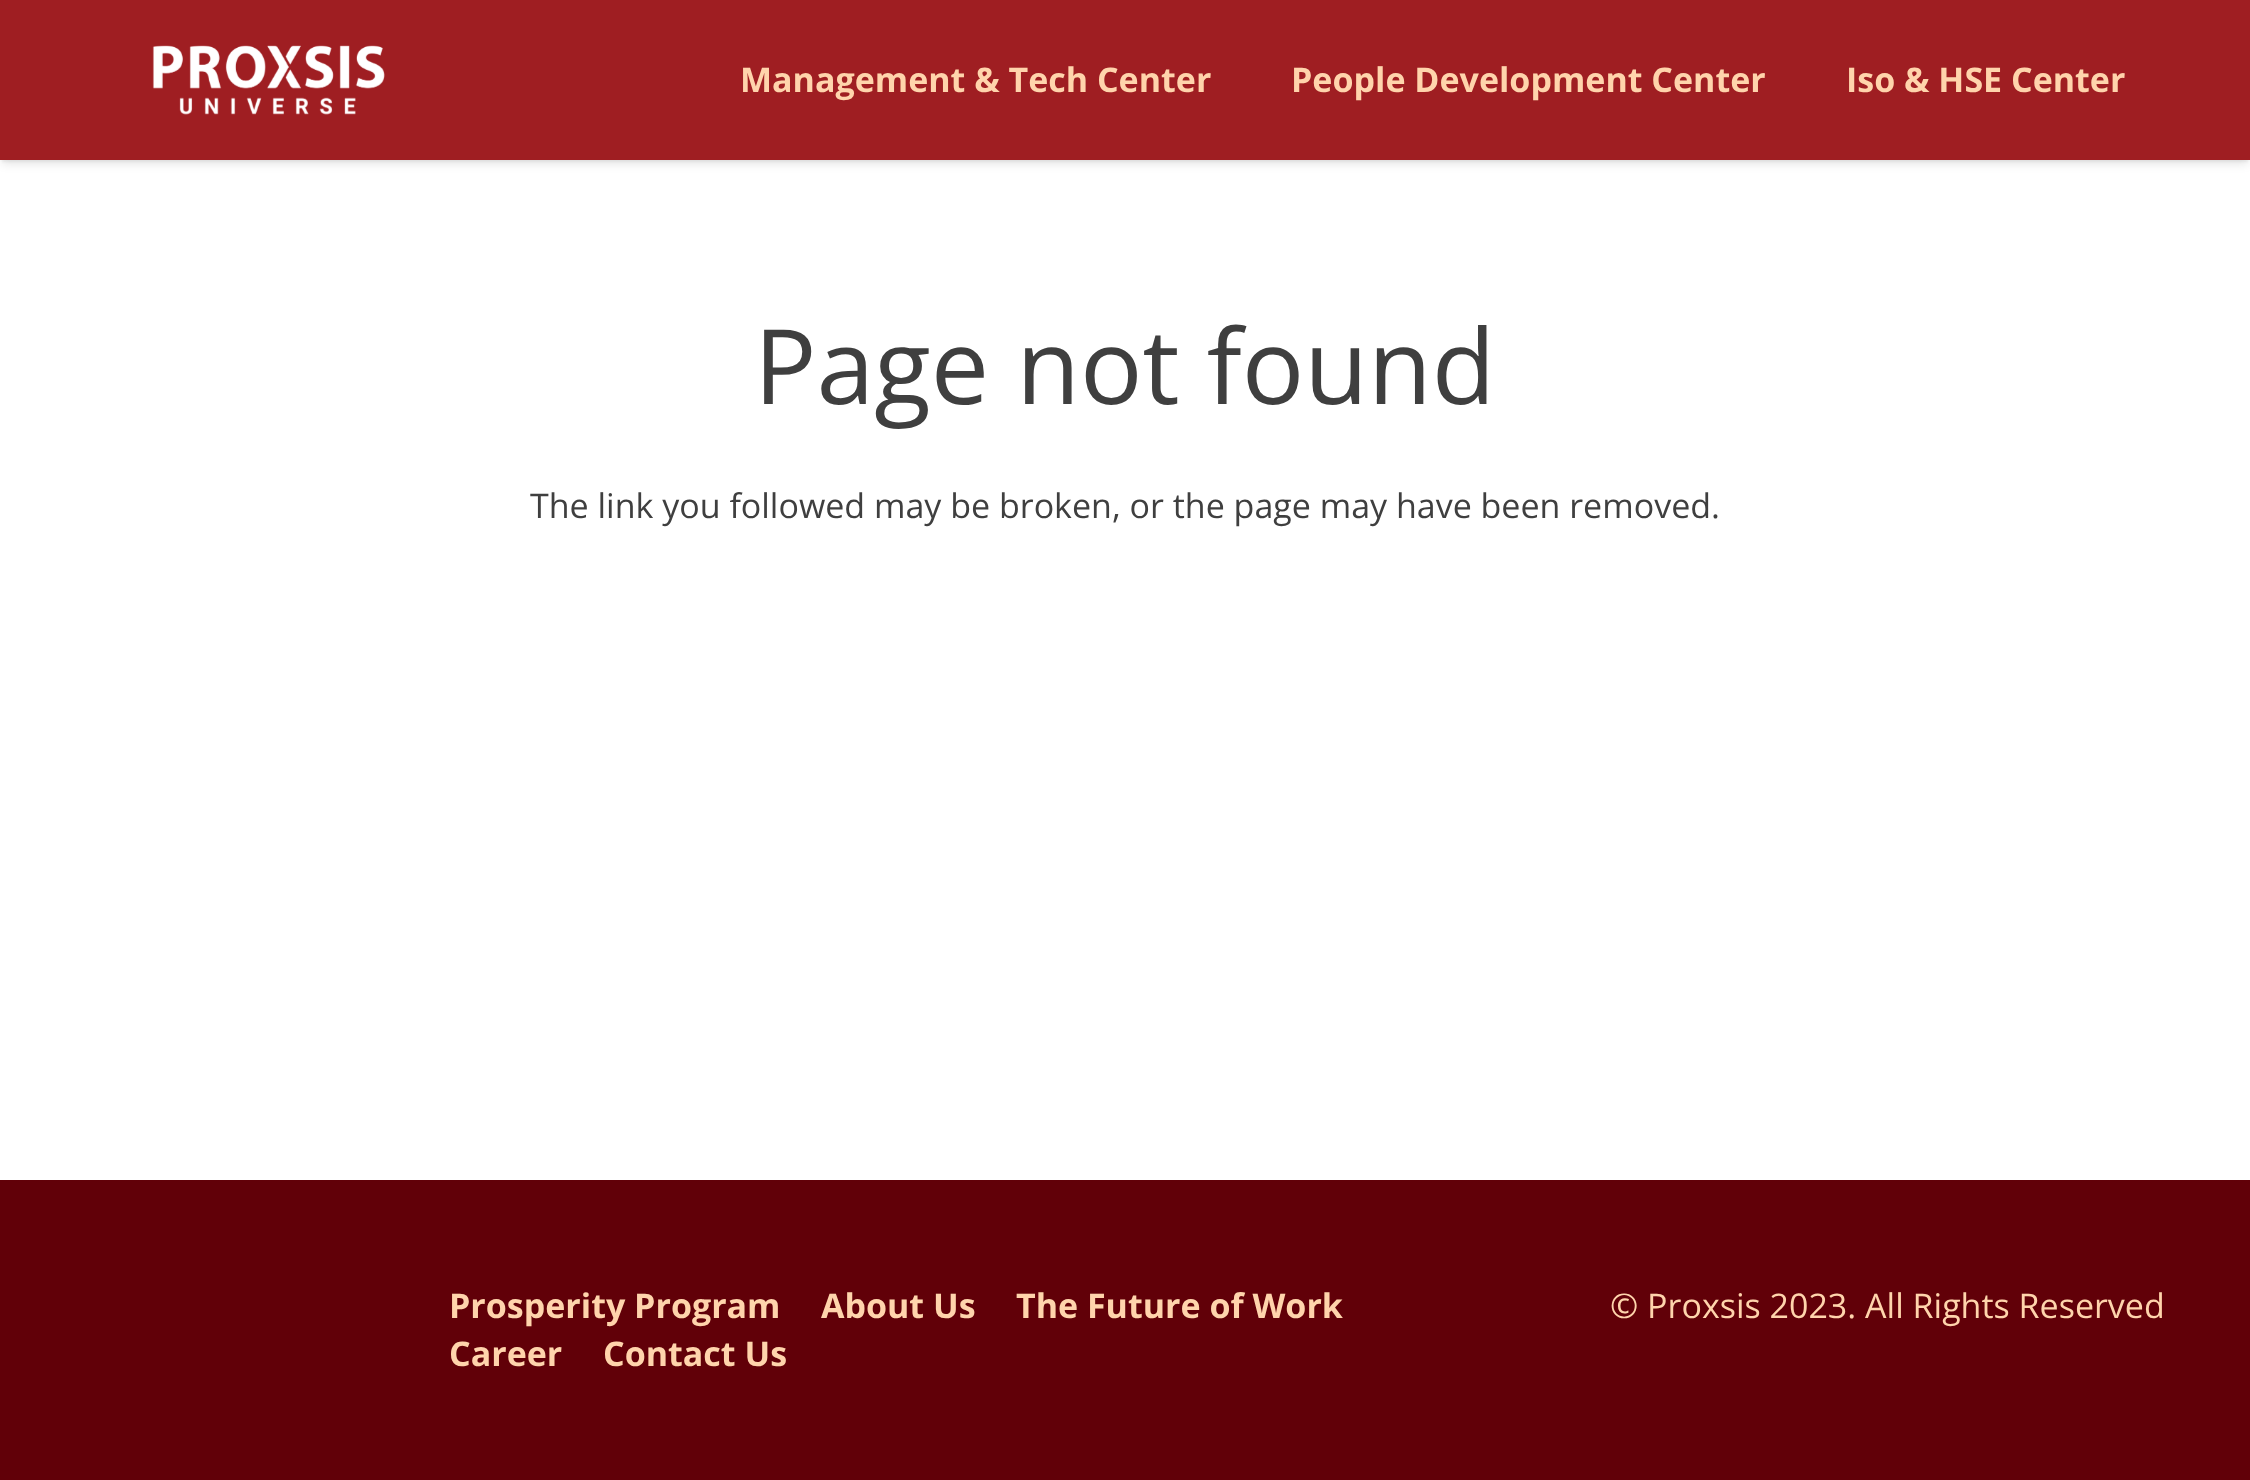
<?xml version="1.0" encoding="UTF-8"?>
<svg xmlns="http://www.w3.org/2000/svg" width="2250" height="1480">
    <defs>
        <filter id="blur1" x="-50%" y="-200%" width="200%" height="500%"><feGaussianBlur stdDeviation="1"/></filter>
        <filter id="blur2" x="-50%" y="-200%" width="200%" height="500%"><feGaussianBlur stdDeviation="5"/></filter>
    </defs>
    <rect width="100%" height="100%" fill="#FFFFFF"/>
    <rect x="2" y="6" width="2246" height="156" fill="#000000" fill-opacity="0.05" filter="url(#blur1)"/>
    <rect x="2" y="8" width="2246" height="156" fill="#000000" fill-opacity="0.1" filter="url(#blur2)"/>
    <rect x="0" y="0" width="2250" height="160" fill="#9F1E22"/>
    <image x="152" y="45" width="233" height="70" href="img_01.png"/>
    <text x="740" y="92" font-family="Open Sans" font-size="34" font-weight="700" fill="#FFD4AC">Management &amp; Tech Center</text>
    <text x="1291" y="92" font-family="Open Sans" font-size="34" font-weight="700" fill="#FFD4AC">People Development Center</text>
    <text x="1846" y="92" font-family="Open Sans" font-size="34" font-weight="700" fill="#FFD4AC">Iso &amp; HSE Center</text>
    <text x="754" y="404" font-family="Open Sans" font-size="104" fill="#3F3F3F">Page not found</text>
    <text x="530" y="518" font-family="Open Sans" font-size="34" fill="#3F3F3F">The link you followed may be broken, or the page may have been removed.</text>
    <rect x="0" y="1180" width="2250" height="300" fill="#610008"/>
    <text x="449" y="1318" font-family="Open Sans" font-size="34" font-weight="700" fill="#FFD4AC">Prosperity Program</text>
    <text x="821" y="1318" font-family="Open Sans" font-size="34" font-weight="700" fill="#FFD4AC">About Us</text>
    <text x="1016" y="1318" font-family="Open Sans" font-size="34" font-weight="700" fill="#FFD4AC">The Future of Work</text>
    <text x="449" y="1366" font-family="Open Sans" font-size="34" font-weight="700" fill="#FFD4AC">Career</text>
    <text x="603" y="1366" font-family="Open Sans" font-size="34" font-weight="700" fill="#FFD4AC">Contact Us</text>
    <text x="1610" y="1318" font-family="Open Sans" font-size="34" fill="#FFD4AC">© Proxsis 2023. All Rights Reserved</text>
</svg>
